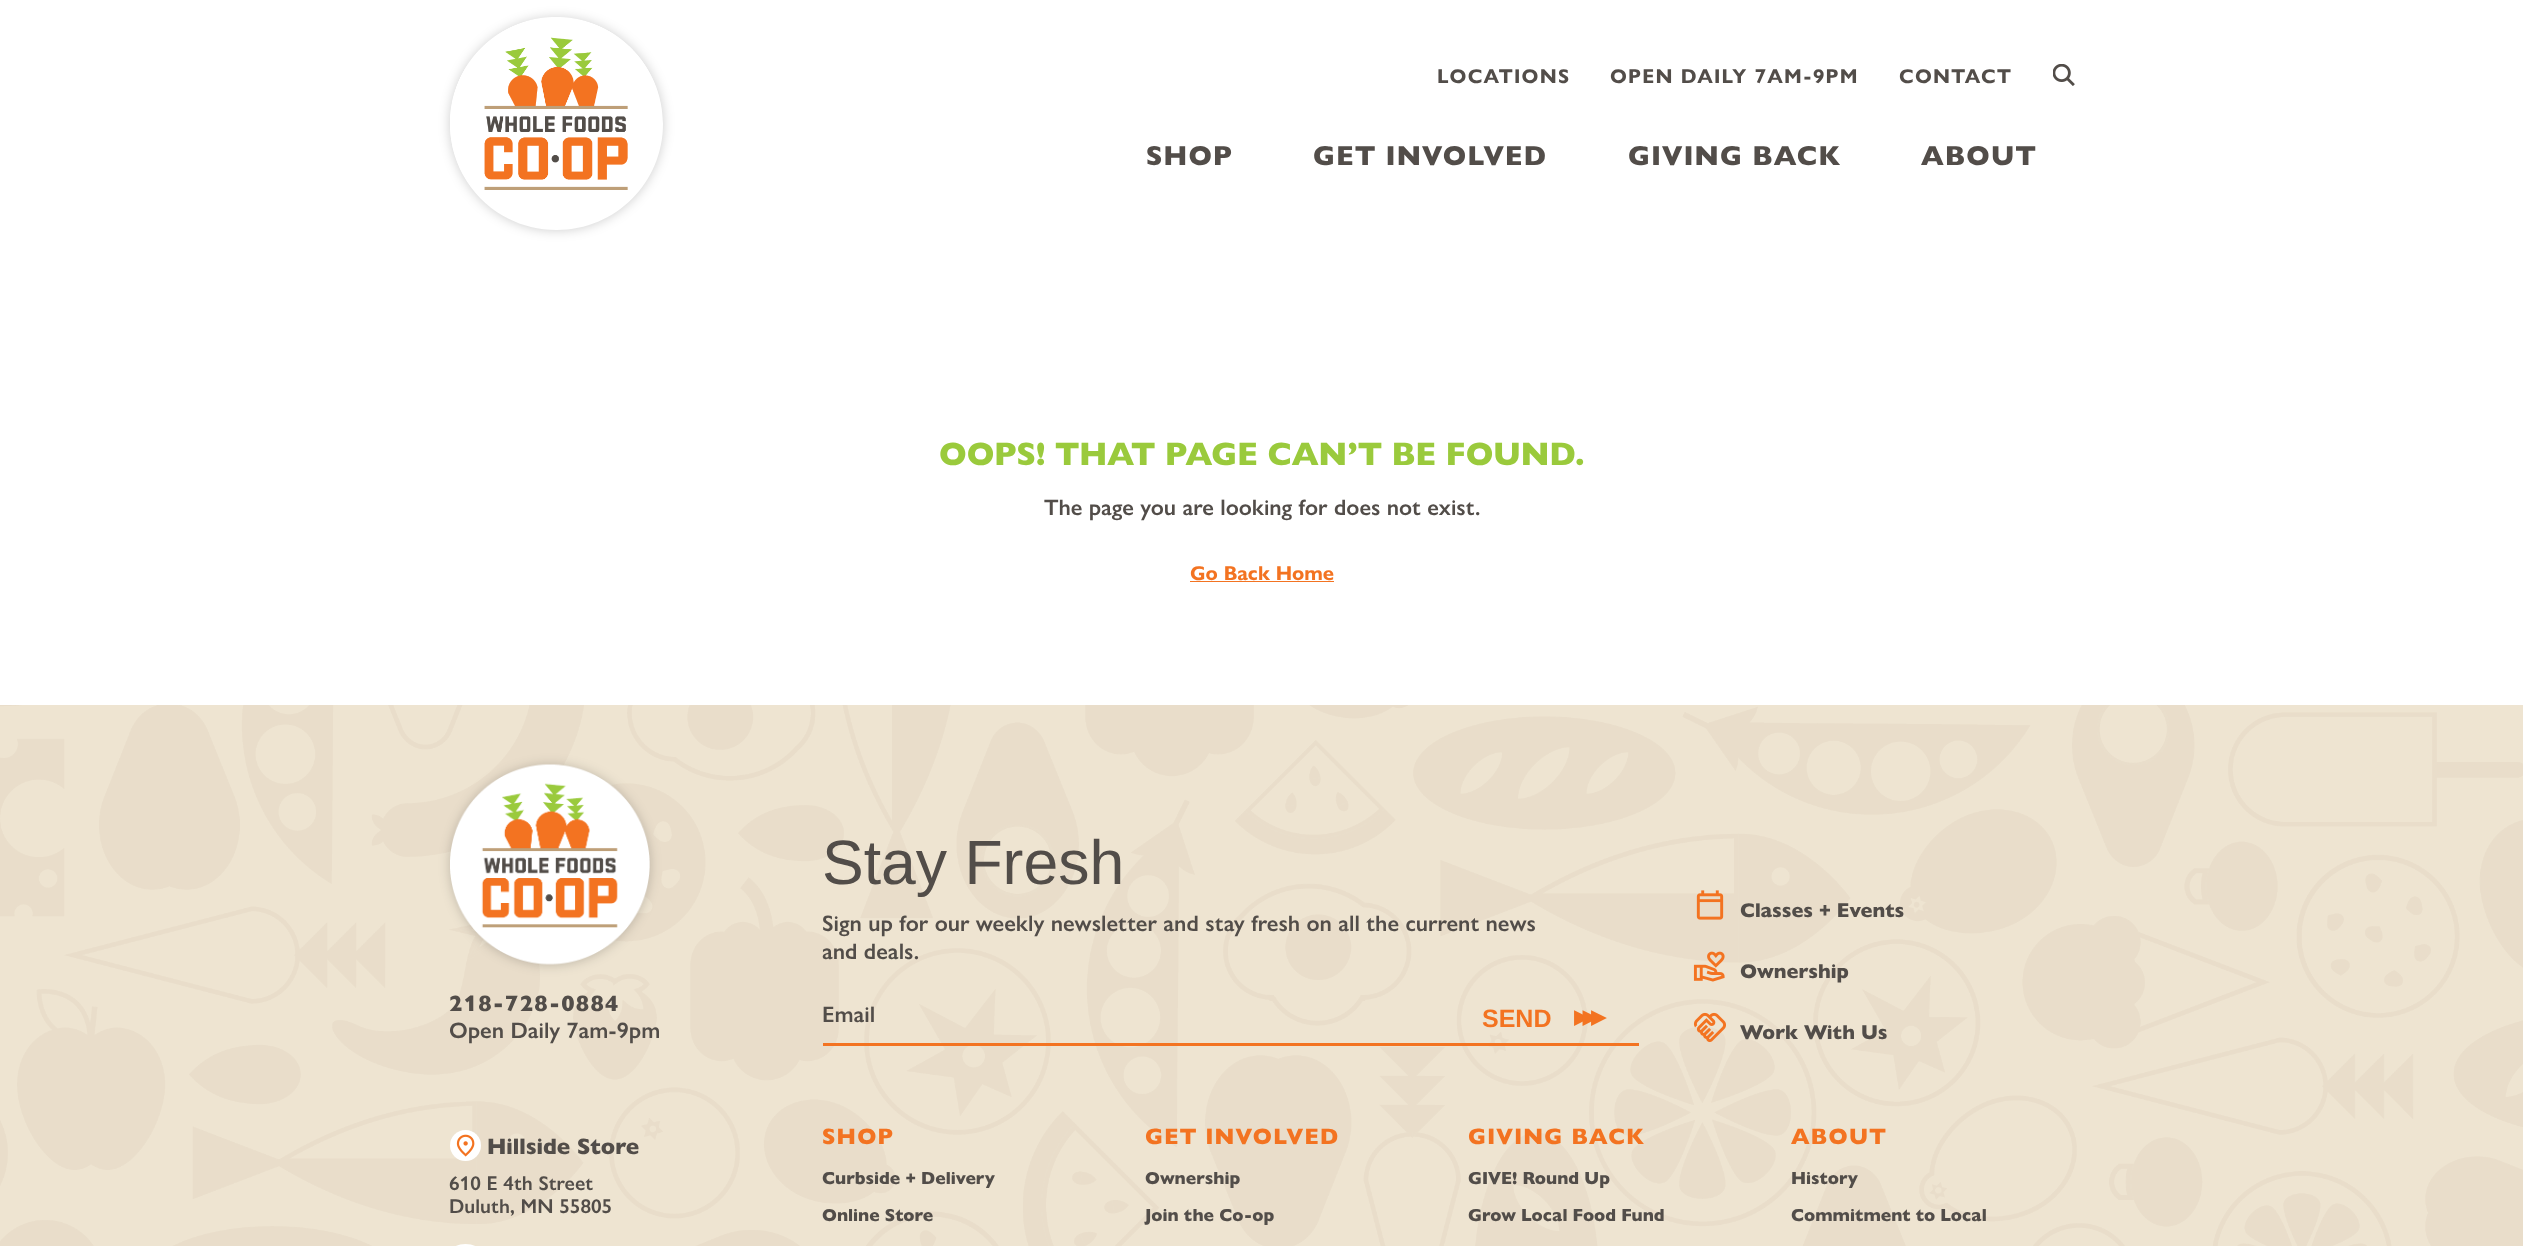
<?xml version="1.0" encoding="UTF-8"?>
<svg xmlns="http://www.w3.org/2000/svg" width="2523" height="1246">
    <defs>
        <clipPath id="clip1"><path d="M 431 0 H 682 V 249 H 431 Z M 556 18 H 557 C 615.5 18 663 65.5 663 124 C 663 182.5 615.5 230 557 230 H 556 C 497.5 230 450 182.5 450 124 C 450 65.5 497.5 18 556 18 Z" clip-rule="evenodd"/></clipPath>
        <filter id="blur1" x="-50%" y="-200%" width="200%" height="500%"><feGaussianBlur stdDeviation="6"/></filter>
    </defs>
    <rect width="100%" height="100%" fill="#FFFFFF"/>
    <g clip-path="url(#clip1)">
        <rect x="450" y="18" width="213" height="212" rx="106" fill="#000000" fill-opacity="0.2" filter="url(#blur1)"/>
    </g>
    <image x="450" y="17" width="212" height="173" href="img_01.png"/>
    <text x="1437" y="83" font-family="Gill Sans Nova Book" font-size="20" font-weight="700" letter-spacing="1.25" fill="#524D49">LOCATIONS</text>
    <text x="1610" y="83" font-family="Gill Sans Nova Book" font-size="20" font-weight="700" letter-spacing="1.25" fill="#524D49">OPEN DAILY 7AM-9PM</text>
    <text x="1899" y="83" font-family="Gill Sans Nova Book" font-size="20" font-weight="700" letter-spacing="1.25" fill="#524D49">CONTACT</text>
    <image x="2053" y="64" width="22" height="22" href="img_02.png"/>
    <text x="1146" y="165" font-family="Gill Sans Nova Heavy" font-size="27.5" font-weight="900" letter-spacing="1.25" fill="#524D49">SHOP</text>
    <text x="1313" y="165" font-family="Gill Sans Nova Heavy" font-size="27.5" font-weight="900" letter-spacing="1.25" fill="#524D49">GET INVOLVED</text>
    <text x="1628" y="165" font-family="Gill Sans Nova Heavy" font-size="27.5" font-weight="900" letter-spacing="1.25" fill="#524D49">GIVING BACK</text>
    <text x="1921" y="165" font-family="Gill Sans Nova Heavy" font-size="27.5" font-weight="900" letter-spacing="1.25" fill="#524D49">ABOUT</text>
    <text x="939" y="465" font-family="Gill Sans Nova Heavy" font-size="32.5" font-weight="900" fill="#9ACA3C">OOPS! THAT PAGE CAN’T BE FOUND.</text>
    <text x="1044" y="515" font-family="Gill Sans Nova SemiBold" font-size="22.5" font-weight="600" fill="#524D49">The page you are looking for does not exist.</text>
    <text x="1190" y="580" font-family="Gill Sans Nova Book" font-size="20" font-weight="700" fill="#F37321">Go Back Home</text>
    <rect x="1190" y="581" width="144" height="1" fill="#F37321"/>
    <rect x="0" y="705" width="2523" height="541" fill="#EEE4D1"/>
    <image x="0" y="705" width="2523" height="541" href="img_03.png"/>
    <rect x="450" y="765" width="200" height="200" rx="100" fill="#000000" fill-opacity="0.2" filter="url(#blur1)"/>
    <image x="450" y="764" width="200" height="201" href="img_04.png"/>
    <text x="449" y="1011" font-family="Gill Sans Nova Heavy" font-size="22.5" font-weight="900" letter-spacing="1.25" fill="#524D49">218-728-0884</text>
    <text x="449" y="1038" font-family="Gill Sans Nova SemiBold" font-size="22.5" font-weight="600" fill="#524D49">Open Daily 7am-9pm</text>
    <text x="822" y="884" font-family="Liberation Sans" font-size="62.5" fill="#524D49">Stay Fresh</text>
    <text font-family="Gill Sans Nova SemiBold" font-size="22.5" font-weight="600" fill="#524D49">
        <tspan x="822" y="931">Sign up for our weekly newsletter and stay fresh on all the current news</tspan>
        <tspan x="822" y="959">and deals.</tspan>
    </text>
    <rect x="823" y="1043" width="816" height="3" fill="#F37321"/>
    <text x="822" y="1022" font-family="Gill Sans Nova SemiBold" font-size="22.5" font-weight="600" fill="#524D49">Email</text>
    <text x="1482" y="1027" font-family="Liberation Sans" font-size="25" font-weight="700" fill="#F37321">SEND</text>
    <text x="1574" y="1026" font-family="DejaVu Sans" font-size="29" font-weight="700" letter-spacing="-6" fill="#F37321">▸▸▸</text>
    <image x="1696" y="890" width="28" height="30" href="img_05.png"/>
    <text x="1740" y="917" font-family="Gill Sans Nova Heavy" font-size="20" font-weight="900" fill="#524D49">Classes + Events</text>
    <image x="1693" y="951" width="32" height="31" href="img_06.png"/>
    <text x="1740" y="978" font-family="Gill Sans Nova Heavy" font-size="20" font-weight="900" fill="#524D49">Ownership</text>
    <image x="1693" y="1012" width="33" height="31" href="img_07.png"/>
    <text x="1740" y="1039" font-family="Gill Sans Nova Heavy" font-size="20" font-weight="900" fill="#524D49">Work With Us</text>
    <circle cx="465.5" cy="1145.5" r="15.5" fill="#FFFFFF"/>
    <image x="456" y="1134" width="19" height="23" href="img_08.png"/>
    <text x="487" y="1154" font-family="Gill Sans Nova Heavy" font-size="22.5" font-weight="900" fill="#524D49">Hillside Store</text>
    <text font-family="Gill Sans Nova SemiBold" font-size="20" font-weight="600" fill="#524D49">
        <tspan x="449" y="1190">610 E 4th Street</tspan>
        <tspan x="449" y="1213">Duluth, MN 55805</tspan>
    </text>
    <rect x="450" y="1244" width="31" height="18" rx="15.5" fill="#FFFFFF"/>
    <text x="822" y="1144" font-family="Gill Sans Nova Heavy" font-size="22.5" font-weight="900" letter-spacing="1.25" fill="#F37321">SHOP</text>
    <text x="822" y="1184" font-family="Gill Sans Nova Heavy" font-size="17.5" font-weight="900" fill="#524D49">Curbside + Delivery</text>
    <text x="822" y="1221" font-family="Gill Sans Nova Heavy" font-size="17.5" font-weight="900" fill="#524D49">Online Store</text>
    <text x="1145" y="1144" font-family="Gill Sans Nova Heavy" font-size="22.5" font-weight="900" letter-spacing="1.25" fill="#F37321">GET INVOLVED</text>
    <text x="1145" y="1184" font-family="Gill Sans Nova Heavy" font-size="17.5" font-weight="900" fill="#524D49">Ownership</text>
    <text x="1145" y="1221" font-family="Gill Sans Nova Heavy" font-size="17.5" font-weight="900" fill="#524D49">Join the Co-op</text>
    <text x="1468" y="1144" font-family="Gill Sans Nova Heavy" font-size="22.5" font-weight="900" letter-spacing="1.25" fill="#F37321">GIVING BACK</text>
    <text x="1468" y="1184" font-family="Gill Sans Nova Heavy" font-size="17.5" font-weight="900" fill="#524D49">GIVE! Round Up</text>
    <text x="1468" y="1221" font-family="Gill Sans Nova Heavy" font-size="17.5" font-weight="900" fill="#524D49">Grow Local Food Fund</text>
    <text x="1791" y="1144" font-family="Gill Sans Nova Heavy" font-size="22.5" font-weight="900" letter-spacing="1.25" fill="#F37321">ABOUT</text>
    <text x="1791" y="1184" font-family="Gill Sans Nova Heavy" font-size="17.5" font-weight="900" fill="#524D49">History</text>
    <text x="1791" y="1221" font-family="Gill Sans Nova Heavy" font-size="17.5" font-weight="900" fill="#524D49">Commitment to Local</text>
</svg>
